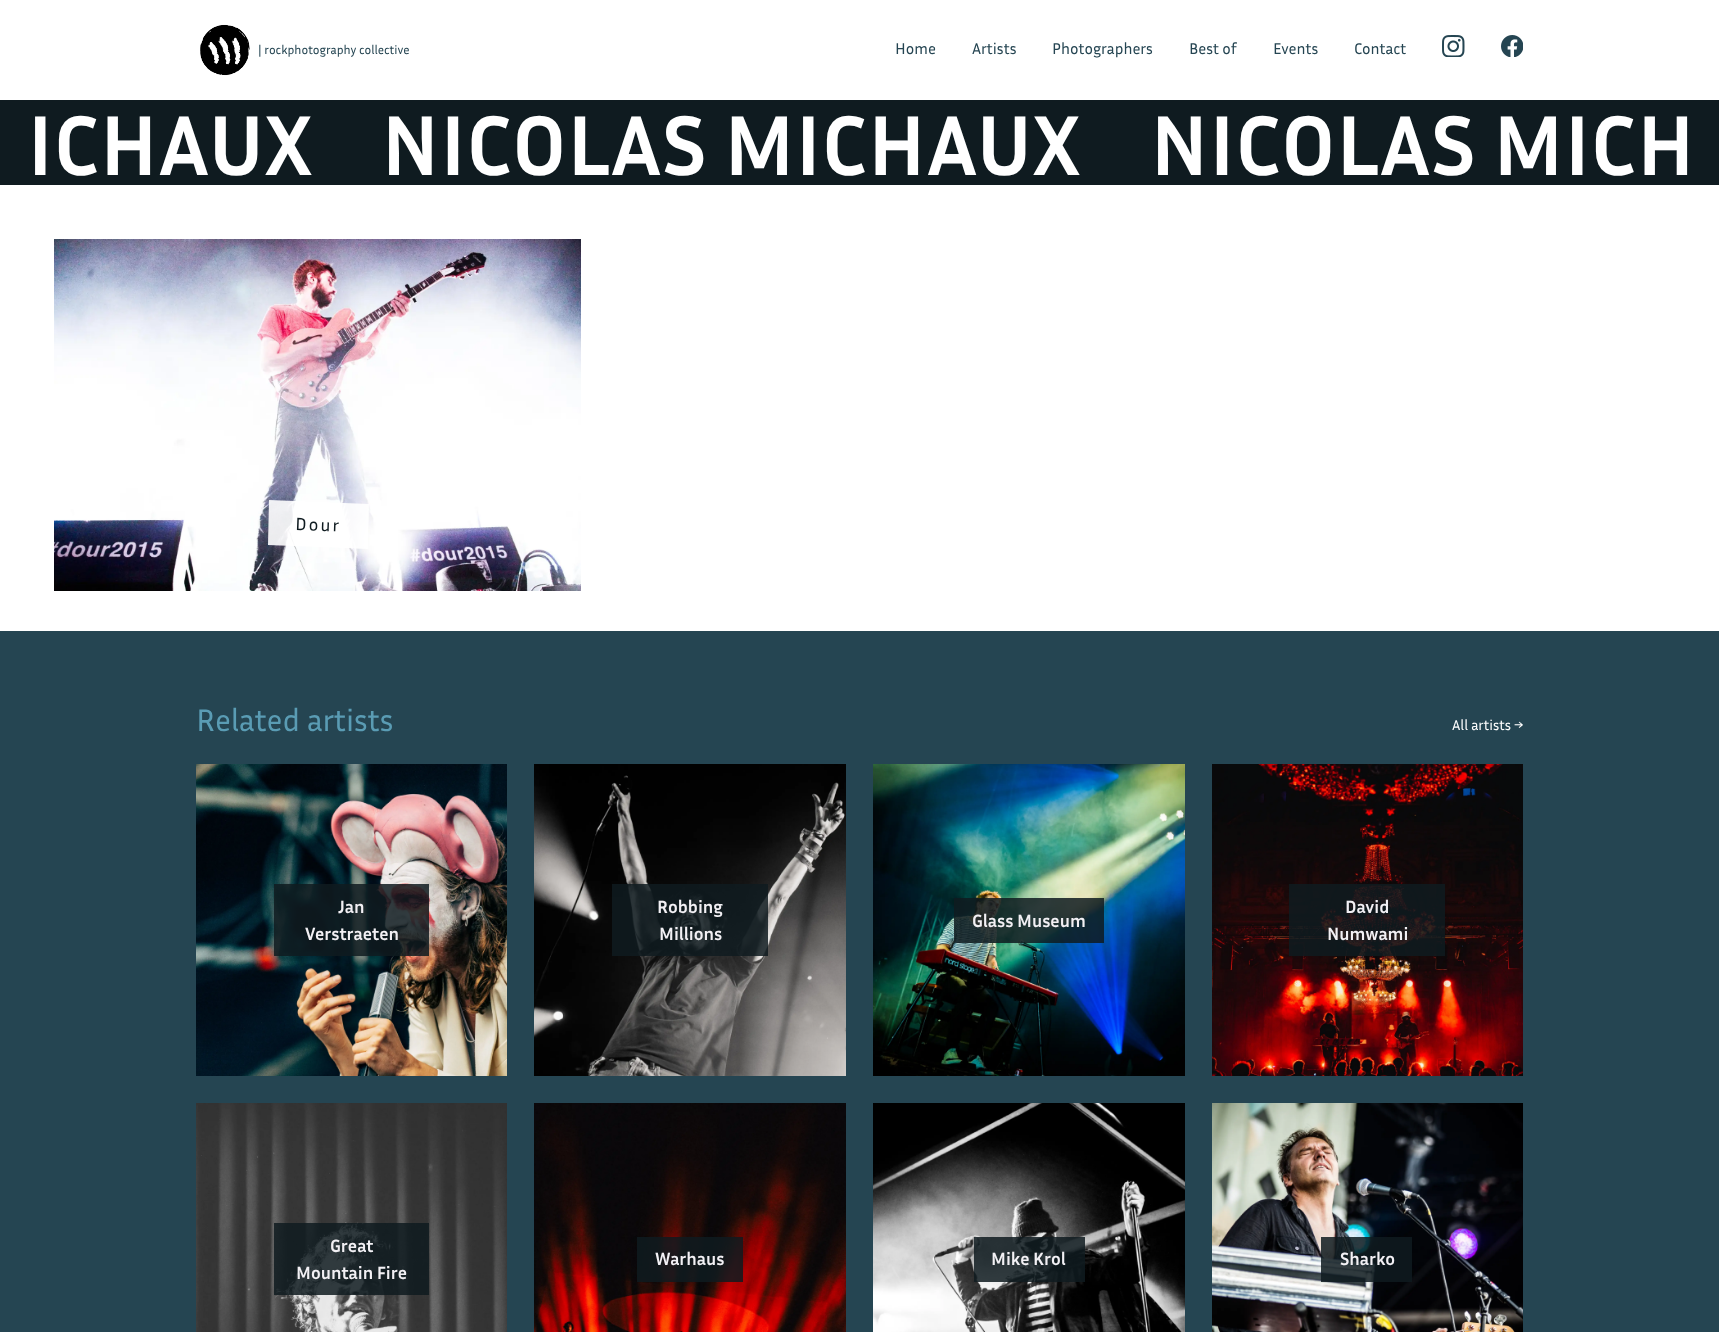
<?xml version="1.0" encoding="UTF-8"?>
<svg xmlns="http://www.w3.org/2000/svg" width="1719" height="1332">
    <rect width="100%" height="100%" fill="#254552"/>
    <rect x="0" y="0" width="1719" height="100" fill="#FFFFFF"/>
    <image x="200" y="24" width="50" height="52" href="img_01.png"/>
    <text x="258" y="54" font-family="Inria Sans" font-size="12.4" fill="#254552">| rockphotography collective</text>
    <text x="895" y="54" font-family="Inria Sans" font-size="15.75" fill="#254552">Home</text>
    <text x="972" y="54" font-family="Inria Sans" font-size="15.75" fill="#254552">Artists</text>
    <text x="1052" y="54" font-family="Inria Sans" font-size="15.75" fill="#254552">Photographers</text>
    <text x="1189" y="54" font-family="Inria Sans" font-size="15.75" fill="#254552">Best of</text>
    <text x="1273" y="54" font-family="Inria Sans" font-size="15.75" fill="#254552">Events</text>
    <text x="1354" y="54" font-family="Inria Sans" font-size="15.75" fill="#254552">Contact</text>
    <image x="1442" y="35" width="23" height="22" href="img_02.png"/>
    <image x="1501" y="35" width="22" height="22" href="img_03.png"/>
    <rect x="0" y="100" width="1719" height="85" fill="#0F1B20"/>
    <text x="27" y="175" font-family="Inria Sans" font-size="86" font-weight="700" fill="#FFFFFF">ICHAUX</text>
    <text x="381" y="175" font-family="Inria Sans" font-size="86" font-weight="700" fill="#FFFFFF">NICOLAS MICHAUX</text>
    <text x="1150" y="175" font-family="Inria Sans" font-size="86" font-weight="700" fill="#FFFFFF">NICOLAS MICH</text>
    <rect x="0" y="185" width="1719" height="446" fill="#FFFFFF"/>
    <image x="54" y="239" width="527" height="352" href="img_04.png"/>
    <path d="M 269 500 L 369 504 L 368 549 L 268 545 Z" fill="#FFFFFF" fill-opacity="0.9"/>
    <text x="295" y="530" transform="rotate(2 295 530)" font-family="Inria Sans" font-size="18" letter-spacing="2" fill="#0F1B20">Dour</text>
    <text x="196" y="731" font-family="Inria Sans" font-size="31.5" fill="#5A9CB4">Related artists</text>
    <text x="1452" y="730" font-family="Inria Sans" font-size="14.5" fill="#FFFFFF">All artists →</text>
    <image x="196" y="764" width="311" height="312" href="img_05.png"/>
    <rect x="274" y="884" width="155" height="72" fill="#0F1B20" fill-opacity="0.85"/>
    <text x="338" y="913" font-family="Inria Sans" font-size="18" font-weight="700" fill="#F2F0F4">Jan</text>
    <text x="305" y="940" font-family="Inria Sans" font-size="18" font-weight="700" fill="#F2F0F4">Verstraeten</text>
    <image x="534" y="764" width="312" height="312" href="img_06.png"/>
    <rect x="612" y="884" width="156" height="72" fill="#0F1B20" fill-opacity="0.85"/>
    <text x="657" y="913" font-family="Inria Sans" font-size="18" font-weight="700" fill="#F2F0F4">Robbing</text>
    <text x="659" y="940" font-family="Inria Sans" font-size="18" font-weight="700" fill="#F2F0F4">Millions</text>
    <image x="873" y="764" width="312" height="312" href="img_07.png"/>
    <rect x="954" y="898" width="150" height="45" fill="#0F1B20" fill-opacity="0.85"/>
    <text x="972" y="927" font-family="Inria Sans" font-size="18" font-weight="700" fill="#F2F0F4">Glass Museum</text>
    <image x="1212" y="764" width="311" height="312" href="img_08.png"/>
    <rect x="1289" y="884" width="156" height="72" fill="#0F1B20" fill-opacity="0.85"/>
    <text x="1345" y="913" font-family="Inria Sans" font-size="18" font-weight="700" fill="#F2F0F4">David</text>
    <text x="1327" y="940" font-family="Inria Sans" font-size="18" font-weight="700" fill="#F2F0F4">Numwami</text>
    <image x="196" y="1103" width="311" height="229" href="img_09.png"/>
    <rect x="274" y="1223" width="155" height="72" fill="#0F1B20" fill-opacity="0.85"/>
    <text x="330" y="1252" font-family="Inria Sans" font-size="18" font-weight="700" fill="#F2F0F4">Great</text>
    <text x="296" y="1279" font-family="Inria Sans" font-size="18" font-weight="700" fill="#F2F0F4">Mountain Fire</text>
    <image x="534" y="1103" width="312" height="229" href="img_10.png"/>
    <rect x="637" y="1237" width="106" height="45" fill="#0F1B20" fill-opacity="0.85"/>
    <text x="655" y="1265" font-family="Inria Sans" font-size="18" font-weight="700" fill="#F2F0F4">Warhaus</text>
    <image x="873" y="1103" width="312" height="229" href="img_11.png"/>
    <rect x="974" y="1237" width="111" height="45" fill="#0F1B20" fill-opacity="0.85"/>
    <text x="991" y="1265" font-family="Inria Sans" font-size="18" font-weight="700" fill="#F2F0F4">Mike Krol</text>
    <image x="1212" y="1103" width="311" height="229" href="img_12.png"/>
    <rect x="1321" y="1237" width="91" height="45" fill="#0F1B20" fill-opacity="0.85"/>
    <text x="1340" y="1265" font-family="Inria Sans" font-size="18" font-weight="700" fill="#F2F0F4">Sharko</text>
</svg>
